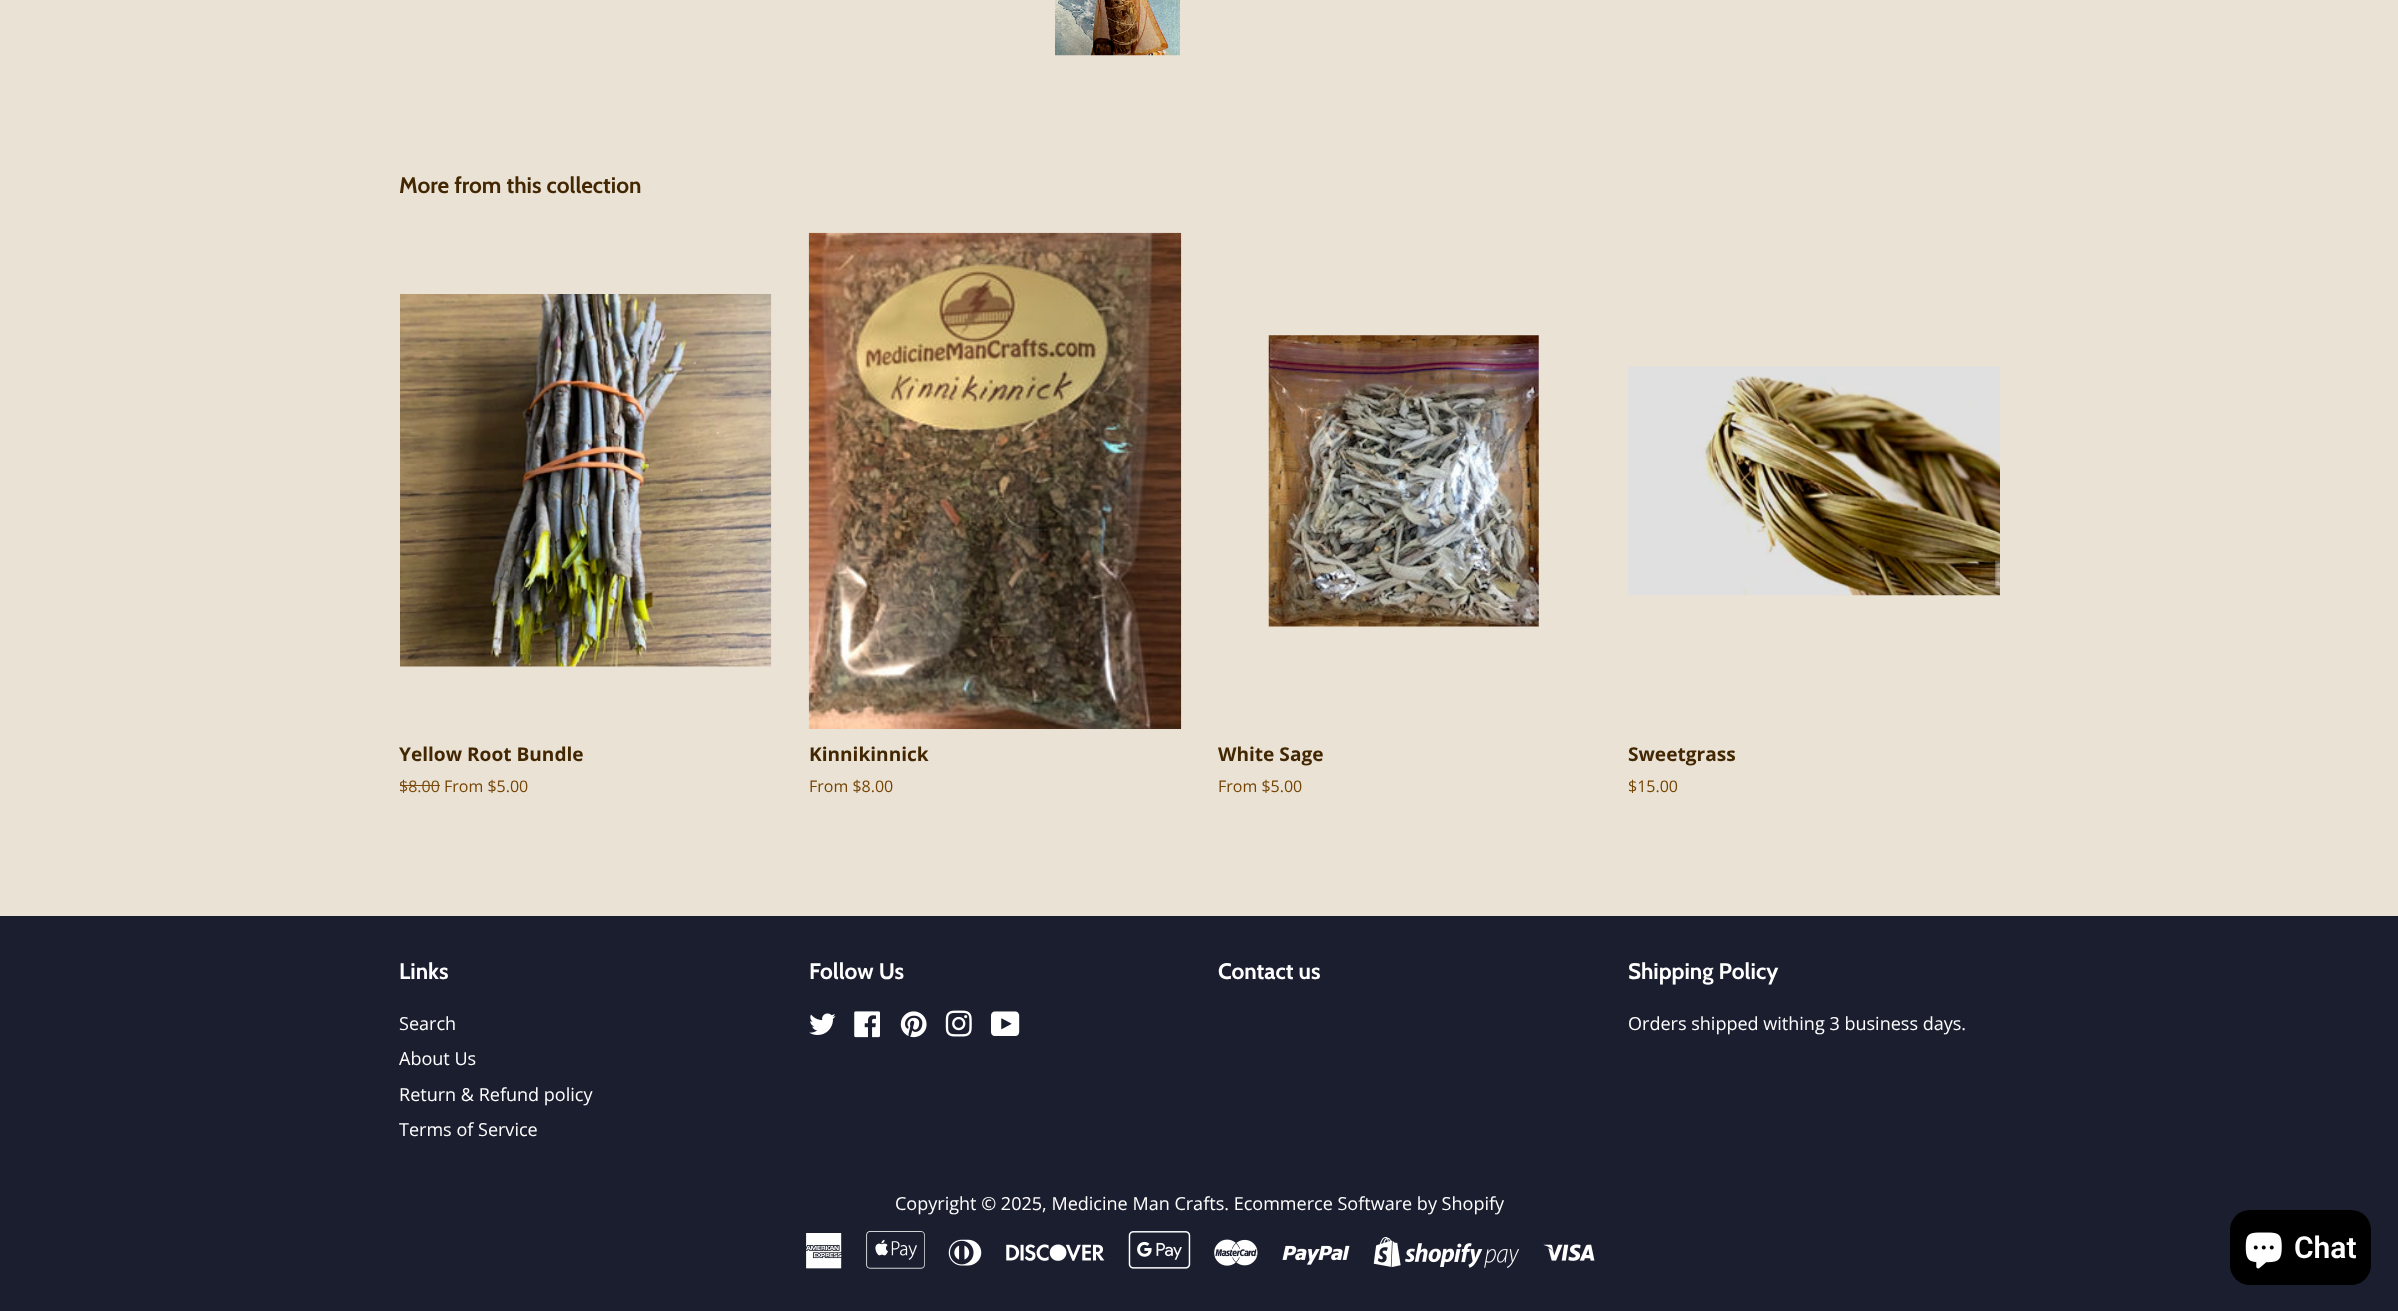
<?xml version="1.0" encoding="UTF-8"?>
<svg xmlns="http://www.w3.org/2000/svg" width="2398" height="1311">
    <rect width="100%" height="100%" fill="#EAE2D4"/>
    <image x="1055" y="0" width="125" height="56" href="img_01.png"/>
    <text x="399" y="193" font-family="Cabin" font-size="22.5" font-weight="700" fill="#422702">More from this collection</text>
    <image x="400" y="294" width="372" height="373" href="img_02.png"/>
    <text x="399" y="761" font-family="Open Sans" font-size="19.1" font-weight="700" fill="#422702">Yellow Root Bundle</text>
    <text x="399" y="792" font-family="Open Sans" font-size="16" fill="#7A4C0E">$8.00</text>
    <rect x="400" y="785" width="40" height="1" fill="#7A4C0E"/>
    <text x="444" y="792" font-family="Open Sans" font-size="16" fill="#744404">From $5.00</text>
    <image x="808" y="232" width="374" height="497" href="img_03.png"/>
    <text x="809" y="761" font-family="Open Sans" font-size="19.1" font-weight="700" fill="#422702">Kinnikinnick</text>
    <text x="809" y="792" font-family="Open Sans" font-size="16" fill="#744404">From $8.00</text>
    <image x="1268" y="335" width="271" height="292" href="img_04.png"/>
    <text x="1218" y="761" font-family="Open Sans" font-size="19.1" font-weight="700" fill="#422702">White Sage</text>
    <text x="1218" y="792" font-family="Open Sans" font-size="16" fill="#744404">From $5.00</text>
    <image x="1628" y="366" width="372" height="230" href="img_05.png"/>
    <text x="1628" y="761" font-family="Open Sans" font-size="19.1" font-weight="700" fill="#422702">Sweetgrass</text>
    <text x="1628" y="792" font-family="Open Sans" font-size="16" fill="#744404">$15.00</text>
    <rect x="0" y="916" width="2398" height="395" fill="#1B1E2F"/>
    <text x="399" y="979" font-family="Cabin" font-size="22.5" font-weight="700" fill="#FFFFFF">Links</text>
    <text font-family="Open Sans" font-size="18.05" fill="#FFFFFF">
        <tspan x="399" y="1030">Search</tspan>
        <tspan x="399" y="1065">About Us</tspan>
        <tspan x="399" y="1101">Return &amp; Refund policy</tspan>
        <tspan x="399" y="1136">Terms of Service</tspan>
    </text>
    <text x="809" y="979" font-family="Cabin" font-size="22.5" font-weight="700" fill="#FFFFFF">Follow Us</text>
    <image x="809" y="1013" width="27" height="22" href="img_06.png"/>
    <image x="854" y="1011" width="26" height="27" href="img_07.png"/>
    <image x="900" y="1011" width="27" height="27" href="img_08.png"/>
    <image x="945" y="1010" width="27" height="27" href="img_09.png"/>
    <image x="991" y="1011" width="29" height="25" href="img_10.png"/>
    <text x="1218" y="979" font-family="Cabin" font-size="22.5" font-weight="700" fill="#FFFFFF">Contact us</text>
    <text x="1628" y="979" font-family="Cabin" font-size="22.5" font-weight="700" fill="#FFFFFF">Shipping Policy</text>
    <text x="1628" y="1030" font-family="Open Sans" font-size="18.05" fill="#FFFFFF">Orders shipped withing 3 business days.</text>
    <text x="895" y="1210" font-family="Open Sans" font-size="18.05" fill="#FFFFFF">Copyright © 2025, Medicine Man Crafts. Ecommerce Software by Shopify</text>
    <image x="806" y="1233" width="36" height="36" href="img_11.png"/>
    <image x="866" y="1231" width="59" height="38" href="img_12.png"/>
    <image x="948" y="1239" width="34" height="27" href="img_13.png"/>
    <image x="1006" y="1244" width="99" height="17" href="img_14.png"/>
    <image x="1128" y="1231" width="63" height="38" href="img_15.png"/>
    <image x="1214" y="1239" width="44" height="27" href="img_16.png"/>
    <image x="1282" y="1245" width="68" height="20" href="img_17.png"/>
    <image x="1373" y="1237" width="146" height="31" href="img_18.png"/>
    <image x="1543" y="1244" width="52" height="17" href="img_19.png"/>
    <rect x="2230" y="1210" width="141" height="75" rx="20" fill="#000000"/>
    <image x="2245" y="1232" width="37" height="37" href="img_20.png"/>
    <text x="2294" y="1258" font-family="Roboto" font-size="30" font-weight="600" fill="#FFFFFF">Chat</text>
</svg>
